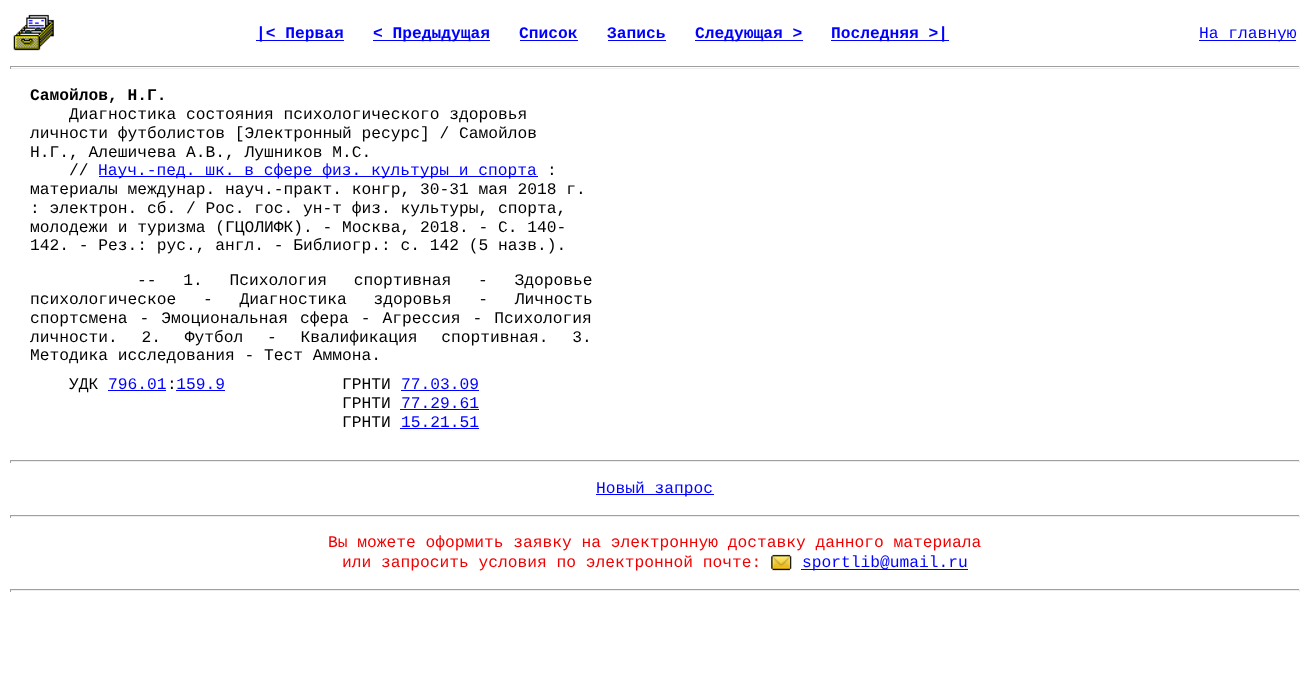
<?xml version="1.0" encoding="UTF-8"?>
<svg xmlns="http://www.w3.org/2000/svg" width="1310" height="674">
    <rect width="100%" height="100%" fill="#FFFFFF"/>
    <image x="13" y="14" width="41" height="37" href="img_01.png"/>
    <rect x="256" y="40" width="88" height="1" fill="#0000FF"/>
    <text x="256" y="38" font-family="Liberation Mono" font-size="16.25" font-weight="700" fill="#0000FF">|&lt; Первая</text>
    <rect x="373" y="40" width="117" height="1" fill="#0000FF"/>
    <text x="373" y="38" font-family="Liberation Mono" font-size="16.25" font-weight="700" fill="#0000FF">&lt; Предыдущая</text>
    <text x="519" y="38" font-family="Liberation Mono" font-size="16.25" font-weight="700" fill="#0000FF">Список</text>
    <rect x="520" y="40" width="58" height="1" fill="#0000FF"/>
    <text x="607" y="38" font-family="Liberation Mono" font-size="16.25" font-weight="700" fill="#0000FF">Запись</text>
    <rect x="608" y="40" width="58" height="1" fill="#0000FF"/>
    <rect x="695" y="40" width="108" height="1" fill="#0000FF"/>
    <text x="695" y="38" font-family="Liberation Mono" font-size="16.25" font-weight="700" fill="#0000FF">Следующая &gt;</text>
    <rect x="831" y="40" width="118" height="1" fill="#0000FF"/>
    <text x="831" y="38" font-family="Liberation Mono" font-size="16.25" font-weight="700" fill="#0000FF">Последняя &gt;|</text>
    <rect x="1199" y="40" width="97" height="1" fill="#0000FF"/>
    <text x="1199" y="38" font-family="Liberation Mono" font-size="16.25" fill="#0000FF">На главную</text>
    <rect x="10" y="66" width="1290" height="1" fill="#9F9F9F"/>
    <rect x="1299" y="66" width="1" height="3" fill="#EEEEEE"/>
    <rect x="10" y="68" width="1290" height="1" fill="#EEEEEE"/>
    <rect x="10" y="66" width="1" height="3" fill="#9F9F9F"/>
    <text x="30" y="100" font-family="Liberation Mono" font-size="16.25" font-weight="700" fill="#000000">Самойлов, Н.Г.</text>
    <text x="69" y="119" font-family="Liberation Mono" font-size="16.25" fill="#000000">Диагностика состояния психологического здоровья</text>
    <text font-family="Liberation Mono" font-size="16.25" fill="#000000">
        <tspan x="30" y="138">личности футболистов [Электронный ресурс] / Самойлов</tspan>
        <tspan x="30" y="157">Н.Г., Алешичева А.В., Лушников М.С.</tspan>
    </text>
    <text x="69" y="175" font-family="Liberation Mono" font-size="16.25" fill="#000000">//</text>
    <rect x="99" y="176" width="439" height="1" fill="#0000FF"/>
    <text x="98" y="175" font-family="Liberation Mono" font-size="16.25" fill="#0000FF">Науч.-пед. шк. в сфере физ. культуры и спорта</text>
    <text x="547" y="175" font-family="Liberation Mono" font-size="16.25" fill="#000000">:</text>
    <text font-family="Liberation Mono" font-size="16.25" fill="#000000">
        <tspan x="30" y="194">материалы междунар. науч.-практ. конгр, 30-31 мая 2018 г.</tspan>
        <tspan x="30" y="213">: электрон. сб. / Рос. гос. ун-т физ. культуры, спорта,</tspan>
        <tspan x="30" y="232">молодежи и туризма (ГЦОЛИФК). - Москва, 2018. - C. 140-</tspan>
        <tspan x="30" y="250">142. - Рез.: рус., англ. - Библиогр.: с. 142 (5 назв.).</tspan>
    </text>
    <text x="137" y="285" word-spacing="17" font-family="Liberation Mono" font-size="16.25" fill="#000000">-- 1. Психология спортивная - Здоровье</text>
    <text font-family="Liberation Mono" font-size="16.25" fill="#000000">
        <tspan x="30" y="304" word-spacing="17">психологическое - Диагностика здоровья - Личность</tspan>
        <tspan x="30" y="323" word-spacing="2.25">спортсмена - Эмоциональная сфера - Агрессия - Психология</tspan>
        <tspan x="30" y="342" word-spacing="14">личности. 2. Футбол - Квалификация спортивная. 3.</tspan>
        <tspan x="30" y="360">Методика исследования - Тест Аммона.</tspan>
    </text>
    <text x="69" y="389" font-family="Liberation Mono" font-size="16.25" fill="#000000">УДК</text>
    <text x="108" y="389" font-family="Liberation Mono" font-size="16.25" fill="#0000FF">796.01 159.9</text>
    <rect x="108" y="390" width="58" height="1" fill="#0000FF"/>
    <text x="342" y="389" font-family="Liberation Mono" font-size="16.25" fill="#000000">ГРНТИ</text>
    <text x="401" y="389" font-family="Liberation Mono" font-size="16.25" fill="#0000FF">77.03.09</text>
    <rect x="401" y="390" width="78" height="1" fill="#0000FF"/>
    <text x="167" y="389" font-family="Liberation Mono" font-size="16.25" fill="#000000">:</text>
    <rect x="176" y="390" width="49" height="1" fill="#0000FF"/>
    <text x="342" y="408" font-family="Liberation Mono" font-size="16.25" fill="#000000">ГРНТИ</text>
    <text x="401" y="408" font-family="Liberation Mono" font-size="16.25" fill="#0000FF">77.29.61</text>
    <rect x="400" y="409" width="79" height="1" fill="#0000FF"/>
    <text x="342" y="427" font-family="Liberation Mono" font-size="16.25" fill="#000000">ГРНТИ</text>
    <text x="401" y="427" font-family="Liberation Mono" font-size="16.25" fill="#0000FF">15.21.51</text>
    <rect x="400" y="428" width="79" height="1" fill="#0000FF"/>
    <rect x="10" y="460" width="1290" height="1" fill="#9F9F9F"/>
    <rect x="1299" y="460" width="1" height="3" fill="#EEEEEE"/>
    <rect x="10" y="461" width="1290" height="1" fill="#EEEEEE"/>
    <rect x="10" y="460" width="1" height="3" fill="#9F9F9F"/>
    <rect x="596" y="494" width="118" height="1" fill="#0000FF"/>
    <text x="596" y="493" font-family="Liberation Mono" font-size="16.25" fill="#0000FF">Новый запрос</text>
    <rect x="10" y="515" width="1290" height="1" fill="#9F9F9F"/>
    <rect x="1299" y="515" width="1" height="3" fill="#EEEEEE"/>
    <rect x="10" y="516" width="1290" height="1" fill="#EEEEEE"/>
    <rect x="10" y="515" width="1" height="3" fill="#9F9F9F"/>
    <text x="328" y="547" font-family="Liberation Mono" font-size="16.25" fill="#F00000">Вы можете оформить заявку на электронную доставку данного материала</text>
    <text x="342" y="567" font-family="Liberation Mono" font-size="16.25" fill="#F00000">или запросить условия по электронной почте:</text>
    <image x="771" y="554" width="21" height="17" href="img_02.png"/>
    <rect x="801" y="569" width="167" height="1" fill="#0000FF"/>
    <text x="802" y="567" font-family="Liberation Mono" font-size="16.25" fill="#0000FF">sportlib@umail.ru</text>
    <rect x="10" y="589" width="1290" height="1" fill="#9F9F9F"/>
    <rect x="1299" y="589" width="1" height="3" fill="#EEEEEE"/>
    <rect x="10" y="590" width="1290" height="1" fill="#EEEEEE"/>
    <rect x="10" y="589" width="1" height="3" fill="#9F9F9F"/>
</svg>
